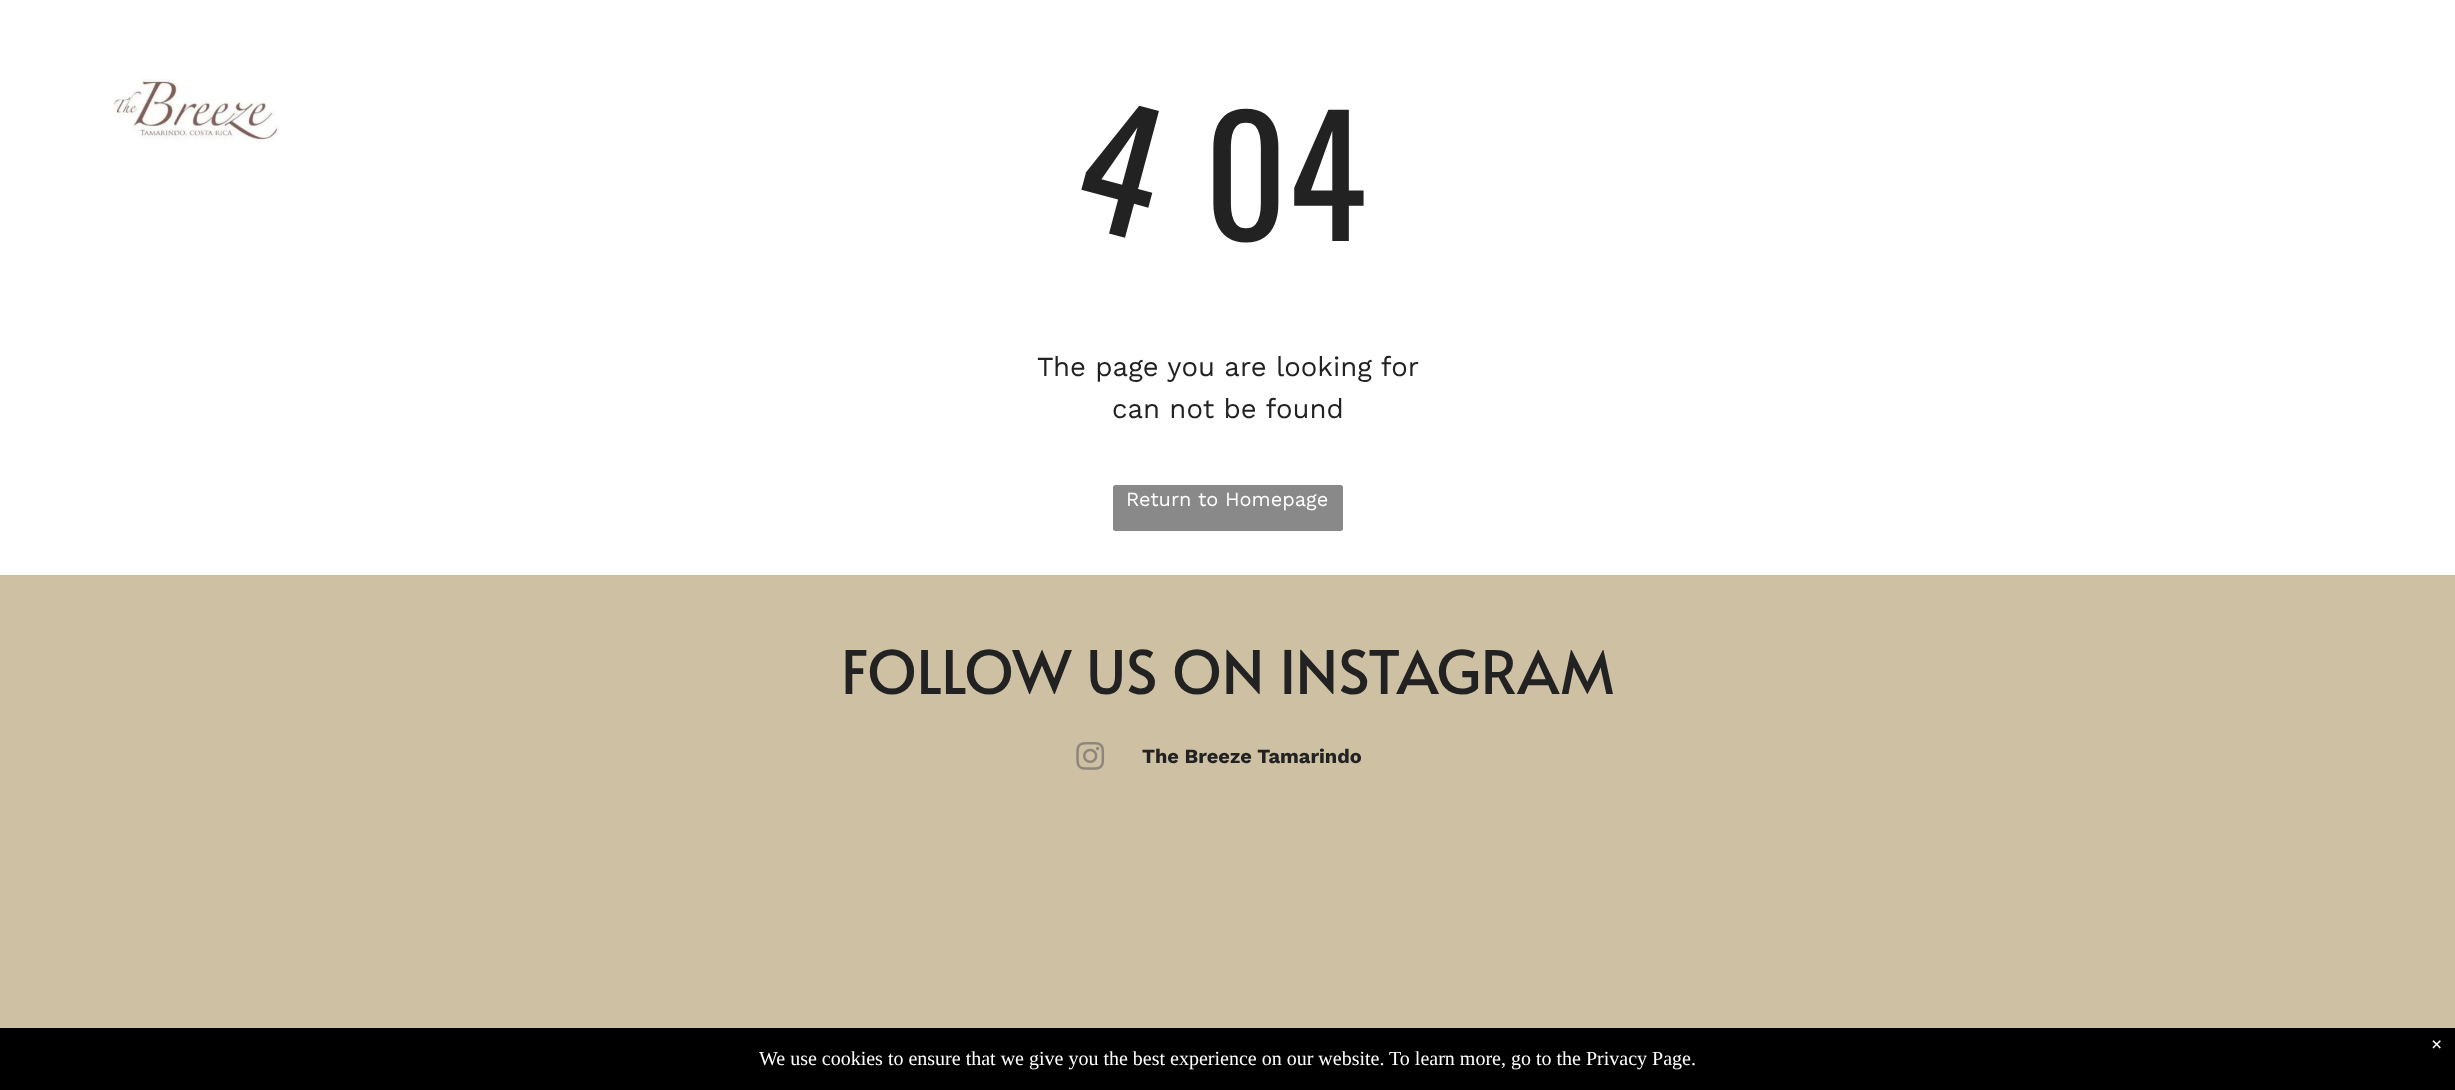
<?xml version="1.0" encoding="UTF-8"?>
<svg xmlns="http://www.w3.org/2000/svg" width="2455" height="1090">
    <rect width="100%" height="100%" fill="#FFFFFF"/>
    <image x="111" y="79" width="170" height="64" href="img_01.png"/>
    <text x="1066" y="222" transform="rotate(15 1066 222)" font-family="Oswald" font-size="162" fill="#222222">4</text>
    <text x="1204" y="241" font-family="Oswald" font-size="162" fill="#222222">04</text>
    <text x="1037" y="376" font-family="Work Sans" font-size="27.5" fill="#222222">The page you are looking for</text>
    <text x="1112" y="418" font-family="Work Sans" font-size="27.5" fill="#222222">can not be found</text>
    <rect x="1113" y="485" width="230" height="46" rx="2.5" fill="#898989"/>
    <text x="1126" y="506" font-family="Work Sans" font-size="20" fill="#FFFFFF">Return to Homepage</text>
    <rect x="0" y="575" width="2455" height="453" fill="#CEC1A3"/>
    <text x="841" y="694" font-family="Alata" font-size="60" fill="#222222">FOLLOW US ON INSTAGRAM</text>
    <image x="1076" y="742" width="29" height="28" href="img_02.png"/>
    <text x="1142" y="763" font-family="Work Sans" font-size="20" font-weight="700" fill="#222222">The Breeze Tamarindo</text>
    <rect x="0" y="1028" width="2455" height="62" fill="#000000"/>
    <text x="2431" y="1051" font-family="Liberation Serif" font-size="20" font-weight="700" fill="#FFFFFF">×</text>
    <text x="759" y="1065" font-family="Liberation Serif" font-size="20" fill="#FFFFFF">We use cookies to ensure that we give you the best experience on our website. To learn more, go to the Privacy Page.</text>
</svg>
